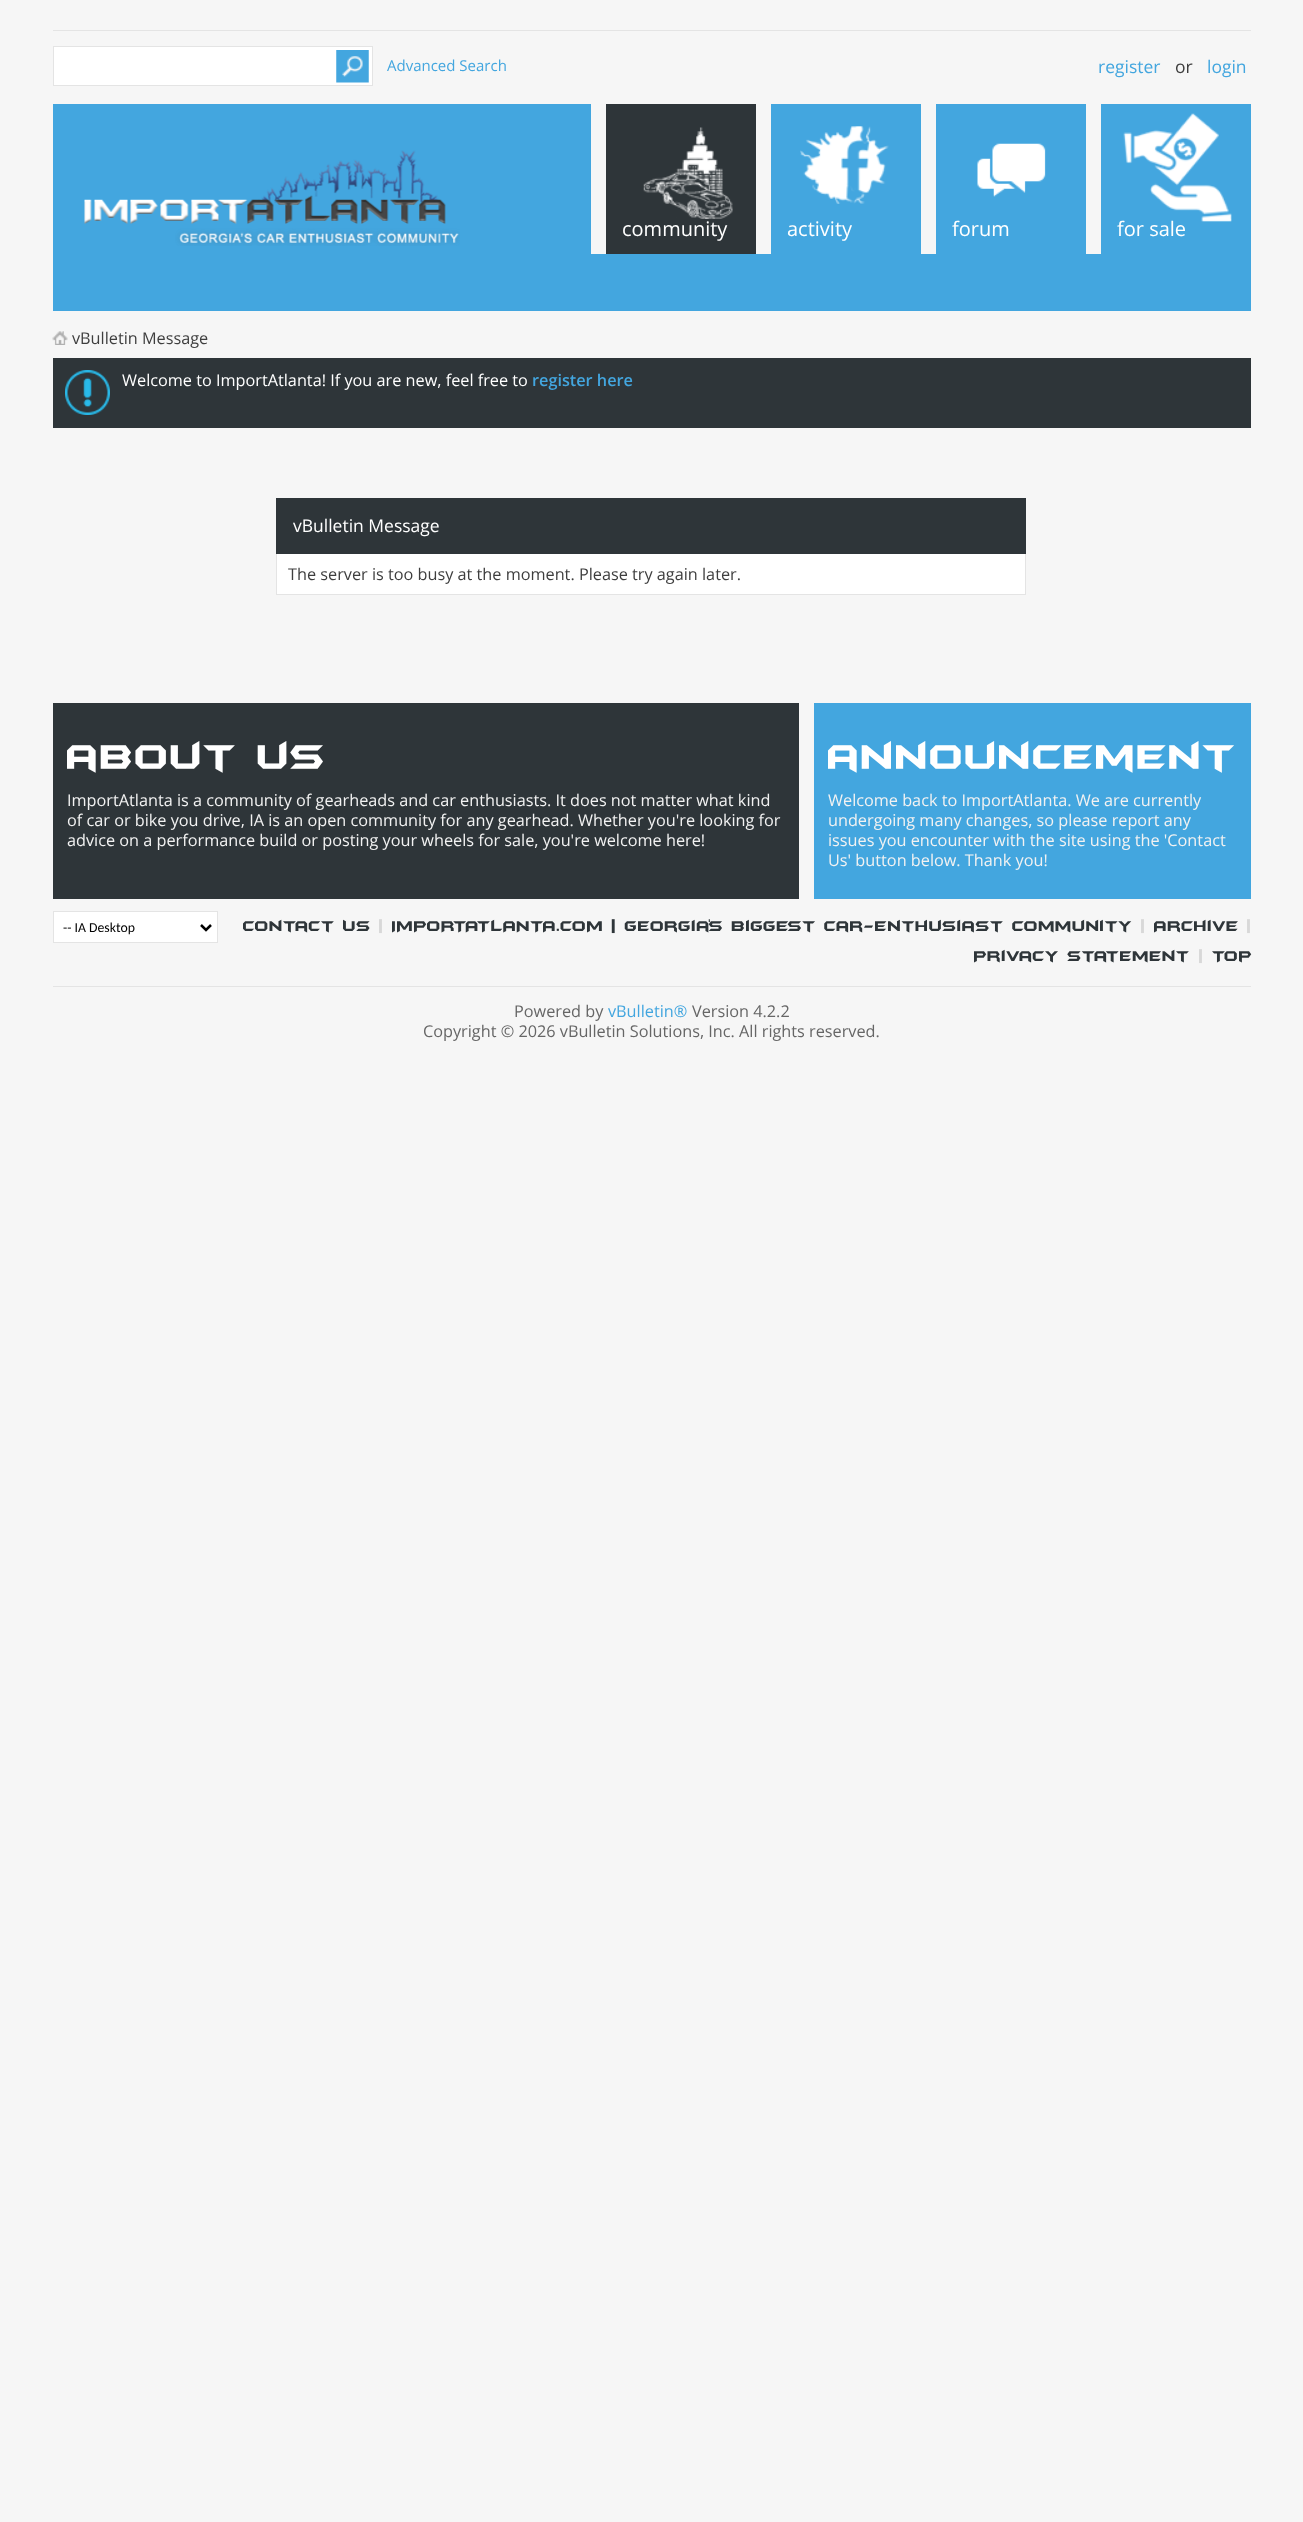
<?xml version="1.0" encoding="UTF-8"?>
<svg xmlns="http://www.w3.org/2000/svg" width="1303" height="2522">
    <rect width="100%" height="100%" fill="#F6F6F6"/>
    <rect x="53" y="30" width="1198" height="1" fill="#E4E4E4"/>
    <rect x="53.5" y="46.5" width="319" height="39" fill="#FFFFFF" stroke="#E4E4E4"/>
    <image x="336" y="50" width="33" height="33" href="img_01.png"/>
    <text x="387" y="71" font-family="Open Sans" font-size="15" fill="#43A6DF">Advanced Search</text>
    <text x="1098" y="73" font-family="Open Sans" font-size="17.5" fill="#43A6DF">register</text>
    <text x="1175" y="73" font-family="Open Sans" font-size="17.5" fill="#3E3E3E">or</text>
    <text x="1207" y="73" font-family="Open Sans" font-size="17.5" fill="#43A6DF">login</text>
    <rect x="53" y="104" width="1198" height="207" fill="#43A6DF"/>
    <image x="84" y="150" width="376" height="96" href="img_02.png"/>
    <rect x="591" y="104" width="15" height="150" fill="#F6F6F6"/>
    <rect x="606" y="104" width="150" height="150" fill="#2E3539"/>
    <image x="643" y="127" width="90" height="92" href="img_03.png"/>
    <text x="622" y="236" font-family="Open Sans" font-size="20" fill="#FFFFFF">community</text>
    <rect x="756" y="104" width="15" height="150" fill="#F6F6F6"/>
    <image x="800" y="126" width="89" height="78" href="img_04.png"/>
    <text x="787" y="236" font-family="Open Sans" font-size="20" fill="#FFFFFF">activity</text>
    <rect x="921" y="104" width="15" height="150" fill="#F6F6F6"/>
    <image x="977" y="143" width="69" height="54" href="img_05.png"/>
    <text x="952" y="236" font-family="Open Sans" font-size="20" fill="#FFFFFF">forum</text>
    <rect x="1086" y="104" width="15" height="150" fill="#F6F6F6"/>
    <image x="1123" y="113" width="109" height="109" href="img_06.png"/>
    <text x="1117" y="236" font-family="Open Sans" font-size="20" fill="#FFFFFF">for sale</text>
    <image x="52" y="331" width="16" height="14" href="img_07.png"/>
    <text x="72" y="344" font-family="Open Sans" font-size="16.25" fill="#3E3E3E">vBulletin Message</text>
    <rect x="53" y="358" width="1198" height="70" fill="#2E3539"/>
    <image x="65" y="370" width="45" height="45" href="img_08.png"/>
    <text x="122" y="386" font-family="Open Sans" font-size="16.25" fill="#FFFFFF">Welcome to ImportAtlanta! If you are new, feel free to</text>
    <text x="532" y="386" font-family="Open Sans" font-size="16.25" font-weight="600" fill="#43A6DF">register here</text>
    <rect x="276" y="498" width="750" height="56" fill="#2E3539"/>
    <text x="293" y="532" font-family="Open Sans" font-size="17.5" fill="#FFFFFF">vBulletin Message</text>
    <rect x="277" y="554" width="748" height="40" fill="#FFFFFF"/>
    <rect x="1025" y="554" width="1" height="41" fill="#E4E4E4"/>
    <rect x="276" y="594" width="750" height="1" fill="#E4E4E4"/>
    <rect x="276" y="554" width="1" height="41" fill="#E4E4E4"/>
    <text x="288" y="580" font-family="Open Sans" font-size="16.25" fill="#3E3E3E">The server is too busy at the moment. Please try again later.</text>
    <rect x="53" y="703" width="746" height="196" fill="#2E3539"/>
    <text x="67" y="769" font-family="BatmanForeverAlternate" font-size="40" fill="#FFFFFF">about us</text>
    <text font-family="Open Sans" font-size="16.25" fill="#F2F2F2">
        <tspan x="67" y="806">ImportAtlanta is a community of gearheads and car enthusiasts. It does not matter what kind</tspan>
        <tspan x="67" y="826">of car or bike you drive, IA is an open community for any gearhead. Whether you're looking for</tspan>
        <tspan x="67" y="846">advice on a performance build or posting your wheels for sale, you're welcome here!</tspan>
    </text>
    <rect x="814" y="703" width="437" height="196" fill="#43A6DF"/>
    <text x="828" y="769" font-family="BatmanForeverAlternate" font-size="40" fill="#FFFFFF">announcement</text>
    <text font-family="Open Sans" font-size="16.25" fill="#F2F2F2">
        <tspan x="828" y="806">Welcome back to ImportAtlanta. We are currently</tspan>
        <tspan x="828" y="826">undergoing many changes, so please report any</tspan>
        <tspan x="828" y="846">issues you encounter with the site using the 'Contact</tspan>
        <tspan x="828" y="866">Us' button below. Thank you!</tspan>
    </text>
    <rect x="53" y="986" width="1198" height="1" fill="#E4E4E4"/>
    <rect x="53.5" y="911.5" width="164" height="31" fill="#FFFFFF" stroke="#E4E4E4"/>
    <path d="M 201 925 L 206 930 L 211 925" fill="none" stroke="#000000" stroke-width="2.5"/>
    <text x="63" y="932" font-family="Carlito" font-size="13.75" fill="#000000">-- IA Desktop</text>
    <text x="243" y="931" font-family="BatmanForeverAlternate" font-size="16.25" fill="#2E3539">Contact Us</text>
    <text x="379" y="931" font-family="BatmanForeverAlternate" font-size="16.25" fill="#D8D8D8">|</text>
    <text x="392" y="931" font-family="BatmanForeverAlternate" font-size="16.25" fill="#2E3539">IMPORTATLANTA.COM | Georgia's biggest car-enthusiast community</text>
    <text x="1141" y="931" font-family="BatmanForeverAlternate" font-size="16.25" fill="#D8D8D8">|</text>
    <text x="1154" y="931" font-family="BatmanForeverAlternate" font-size="16.25" fill="#2E3539">Archive</text>
    <text x="1247" y="931" font-family="BatmanForeverAlternate" font-size="16.25" fill="#D8D8D8">|</text>
    <text x="974" y="961" font-family="BatmanForeverAlternate" font-size="16.25" fill="#2E3539">Privacy Statement</text>
    <text x="1199" y="961" font-family="BatmanForeverAlternate" font-size="16.25" fill="#D8D8D8">|</text>
    <text x="1212" y="961" font-family="BatmanForeverAlternate" font-size="16.25" fill="#2E3539">Top</text>
    <text x="514" y="1017" font-family="Open Sans" font-size="16.25" fill="#666666">Powered by</text>
    <text x="608" y="1017" font-family="Open Sans" font-size="16.25" fill="#43A6DF">vBulletin®</text>
    <text x="692" y="1017" font-family="Open Sans" font-size="16.25" fill="#666666">Version 4.2.2</text>
    <text x="423" y="1037" font-family="Open Sans" font-size="16.25" fill="#666666">Copyright © 2026 vBulletin Solutions, Inc. All rights reserved.</text>
</svg>
